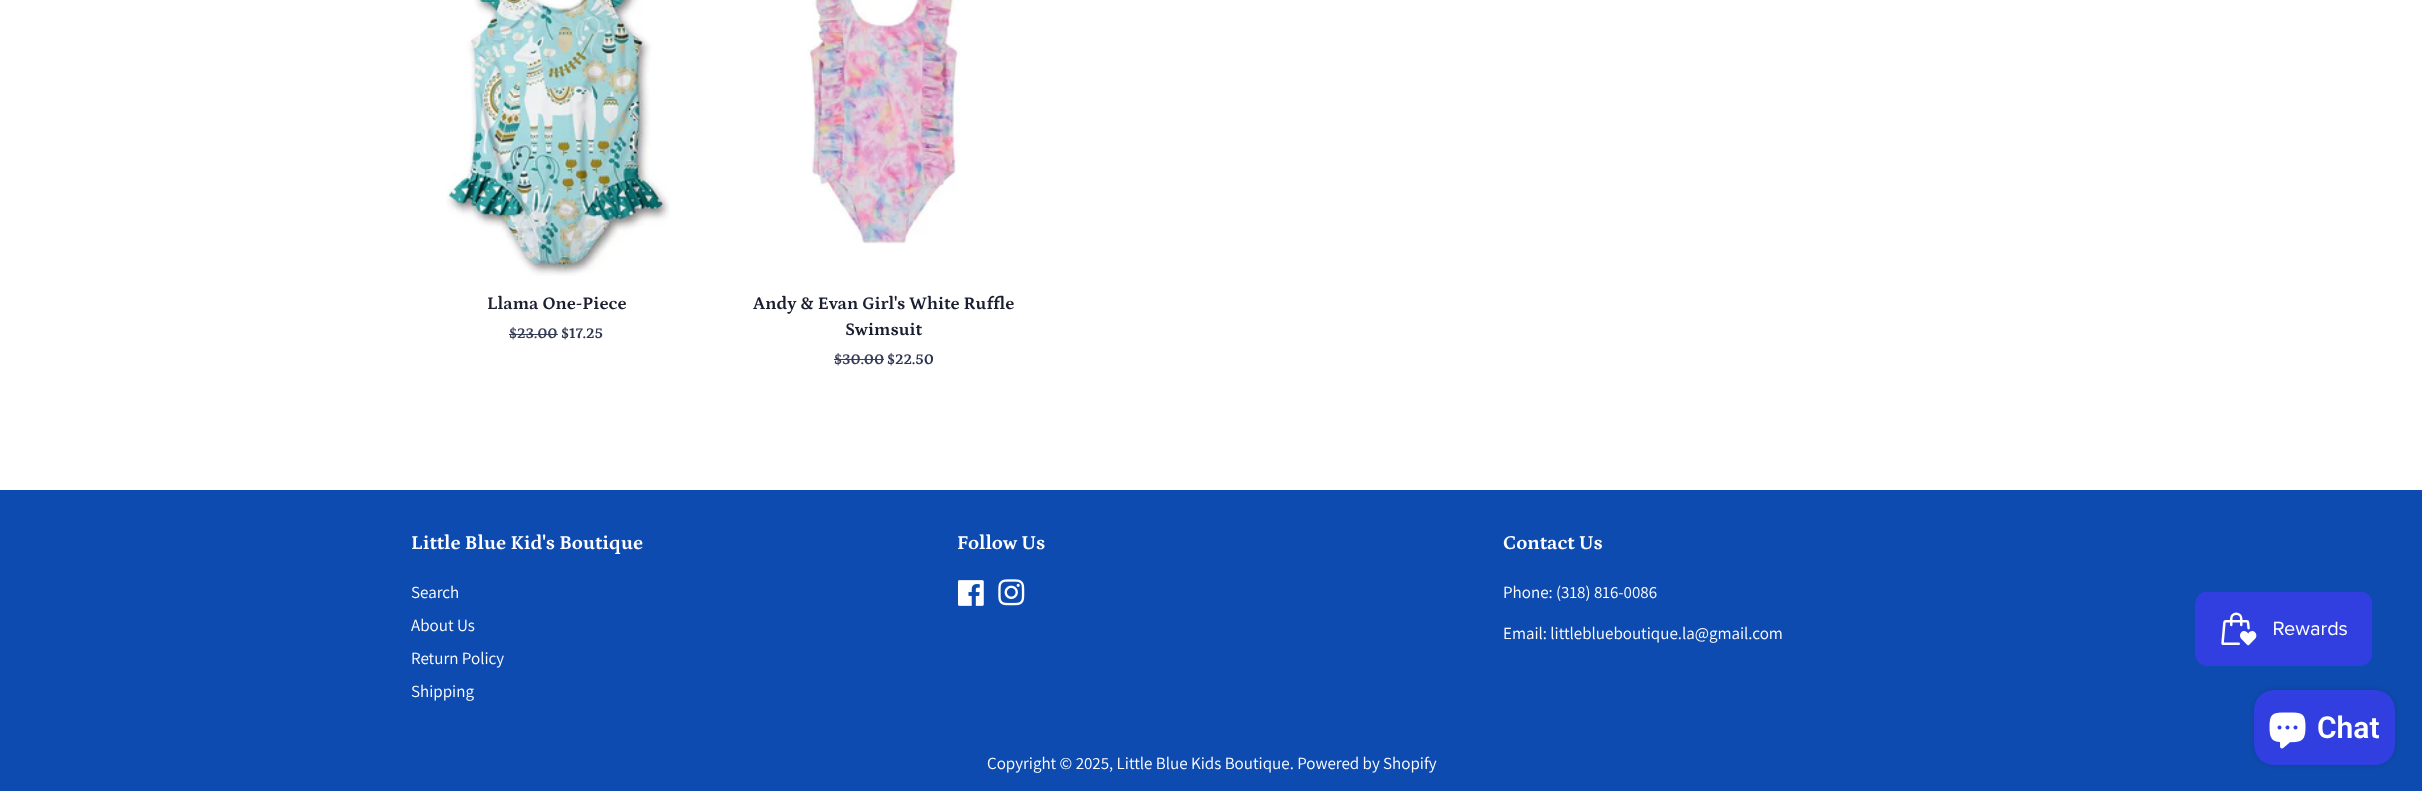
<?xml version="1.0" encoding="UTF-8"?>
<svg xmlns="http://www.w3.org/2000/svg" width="2422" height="791">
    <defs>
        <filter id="blur1" x="-50%" y="-200%" width="200%" height="500%"><feGaussianBlur stdDeviation="3"/></filter>
    </defs>
    <rect width="100%" height="100%" fill="#FFFFFF"/>
    <image x="446" y="0" width="224" height="276" href="img_01.png"/>
    <text x="487" y="309" font-family="Petrona" font-size="18" font-weight="700" fill="#1B1E2F">Llama One-Piece</text>
    <text x="509" y="338" font-family="Petrona" font-size="15" font-weight="700" fill="#383D58">$23.00</text>
    <rect x="509" y="334" width="49" height="1" fill="#383D58"/>
    <text x="561" y="338" font-family="Petrona" font-size="15" font-weight="700" fill="#2E334F">$17.25</text>
    <image x="807" y="0" width="153" height="244" href="img_02.png"/>
    <text x="753" y="309" font-family="Petrona" font-size="18" font-weight="700" fill="#1B1E2F">Andy &amp; Evan Girl's White Ruffle</text>
    <text x="845" y="335" font-family="Petrona" font-size="18" font-weight="700" fill="#1B1E2F">Swimsuit</text>
    <text x="834" y="364" font-family="Petrona" font-size="15" font-weight="700" fill="#383D58">$30.00</text>
    <rect x="834" y="359" width="50" height="1" fill="#383D58"/>
    <text x="887" y="364" font-family="Petrona" font-size="15" font-weight="700" fill="#2E334F">$22.50</text>
    <rect x="0" y="490" width="2422" height="301" fill="#0E4BB0"/>
    <text x="411" y="549" font-family="Petrona" font-size="20" font-weight="700" fill="#FFFFFF">Little Blue Kid's Boutique</text>
    <text font-family="Assistant" font-size="17" fill="#FFFFFF">
        <tspan x="411" y="598">Search</tspan>
        <tspan x="411" y="631">About Us</tspan>
        <tspan x="411" y="664">Return Policy</tspan>
        <tspan x="411" y="697">Shipping</tspan>
    </text>
    <text x="957" y="549" font-family="Petrona" font-size="20" font-weight="700" fill="#FFFFFF">Follow Us</text>
    <image x="958" y="580" width="26" height="26" href="img_03.png"/>
    <image x="998" y="579" width="27" height="27" href="img_04.png"/>
    <text x="1503" y="549" font-family="Petrona" font-size="20" font-weight="700" fill="#FFFFFF">Contact Us</text>
    <text x="1503" y="598" font-family="Assistant" font-size="17" fill="#FFFFFF">Phone: (318) 816-0086</text>
    <text x="1503" y="639" font-family="Assistant" font-size="17" fill="#FFFFFF">Email: littleblueboutique.la@gmail.com</text>
    <text x="987" y="769" font-family="Assistant" font-size="17" fill="#FFFFFF">Copyright © 2025, Little Blue Kids Boutique. Powered by Shopify</text>
    <image x="2195" y="591" width="178" height="75" href="img_05.png"/>
    <rect x="2254" y="690" width="141" height="75" rx="20" fill="#000000" fill-opacity="0.15" filter="url(#blur1)"/>
    <rect x="2254" y="690" width="141" height="75" rx="20" fill="#313FE0"/>
    <image x="2269" y="712" width="37" height="37" href="img_06.png"/>
    <text x="2317" y="738" font-family="Roboto" font-size="30" font-weight="600" fill="#FFFFFF">Chat</text>
</svg>
